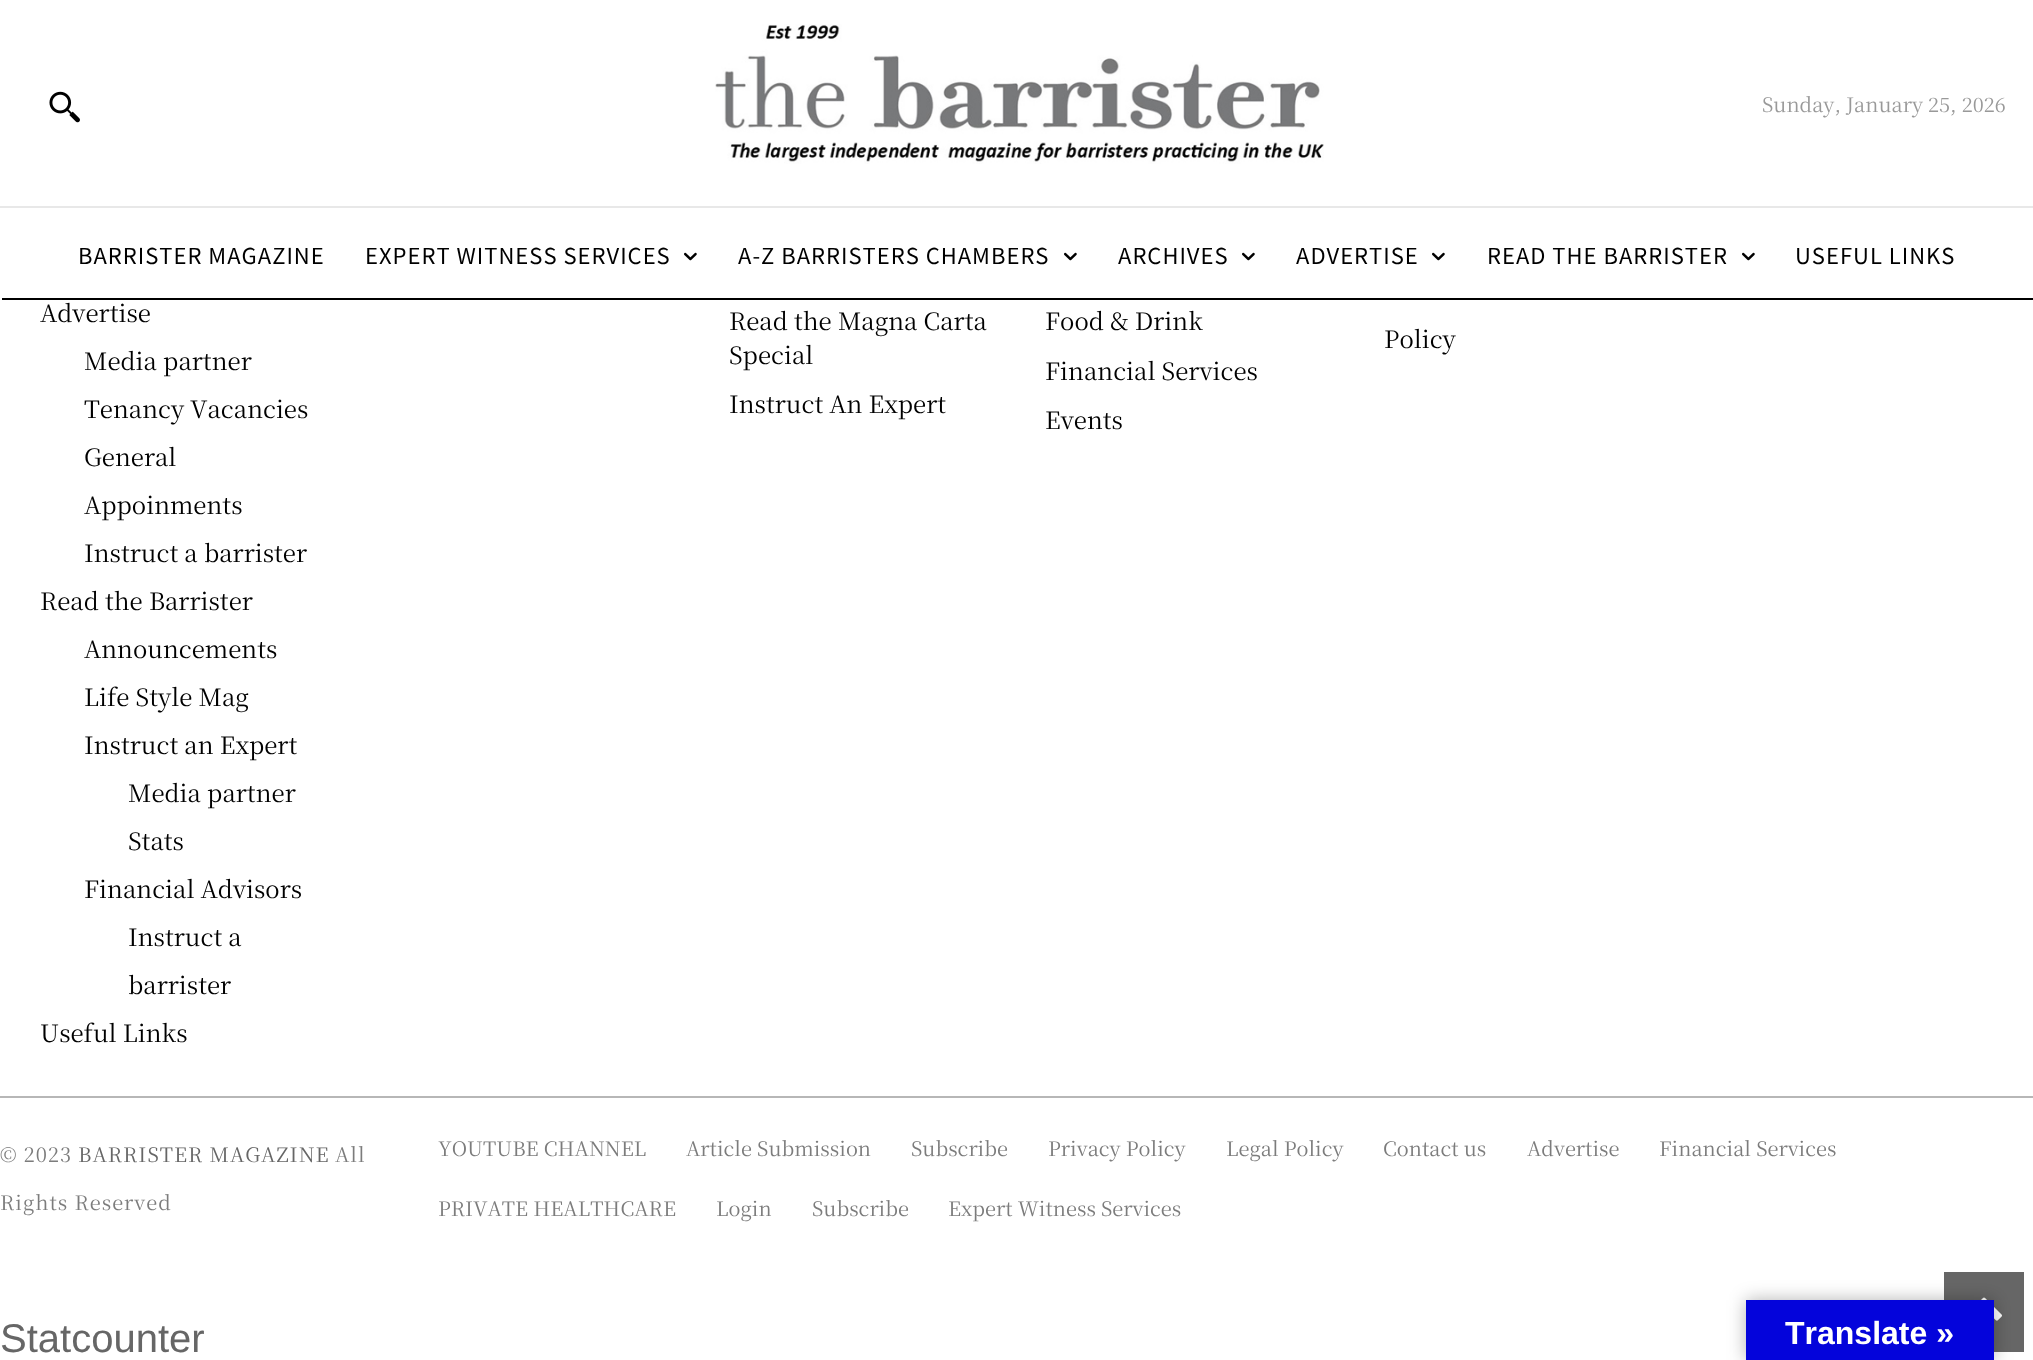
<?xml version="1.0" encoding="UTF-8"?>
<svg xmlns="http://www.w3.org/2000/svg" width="2033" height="1360">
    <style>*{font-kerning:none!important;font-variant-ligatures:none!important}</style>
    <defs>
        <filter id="blur1" x="-50%" y="-200%" width="200%" height="500%"><feGaussianBlur stdDeviation="9"/></filter>
    </defs>
    <rect width="100%" height="100%" fill="#FFFFFF"/>
    <image x="49" y="91" width="31" height="32" href="img_01.png"/>
    <image x="715" y="24" width="609" height="140" href="img_02.png"/>
    <text x="1762" y="112" font-family="Noto Serif JP" font-size="20" fill="#999999">Sunday, January 25, 2026</text>
    <rect x="0" y="206" width="2033" height="2" fill="#E8E8E8"/>
    <text x="78" y="264" font-family="Noto Sans JP" font-size="22" letter-spacing="1" fill="#000000">BARRISTER MAGAZINE</text>
    <text x="365" y="264" font-family="Noto Sans JP" font-size="22" letter-spacing="1" fill="#000000">EXPERT WITNESS SERVICES</text>
    <image x="684" y="252" width="13" height="9" href="img_03.png"/>
    <text x="738" y="264" font-family="Noto Sans JP" font-size="22" letter-spacing="1" fill="#000000">A-Z BARRISTERS CHAMBERS</text>
    <image x="1064" y="252" width="13" height="9" href="img_03.png"/>
    <text x="1118" y="264" font-family="Noto Sans JP" font-size="22" letter-spacing="1" fill="#000000">ARCHIVES</text>
    <image x="1242" y="252" width="13" height="9" href="img_03.png"/>
    <text x="1296" y="264" font-family="Noto Sans JP" font-size="22" letter-spacing="1" fill="#000000">ADVERTISE</text>
    <image x="1432" y="252" width="13" height="9" href="img_03.png"/>
    <text x="1487" y="264" font-family="Noto Sans JP" font-size="22" letter-spacing="1" fill="#000000">READ THE BARRISTER</text>
    <image x="1742" y="252" width="13" height="9" href="img_03.png"/>
    <text x="1795" y="264" font-family="Noto Sans JP" font-size="22" letter-spacing="1" fill="#000000">USEFUL LINKS</text>
    <rect x="2" y="298" width="2031" height="2" fill="#000000"/>
    <text x="40" y="322" font-family="Noto Serif JP" font-size="24" fill="#000000">Advertise</text>
    <text x="84" y="370" font-family="Noto Serif JP" font-size="24" fill="#000000">Media partner</text>
    <text x="84" y="418" font-family="Noto Serif JP" font-size="24" fill="#000000">Tenancy Vacancies</text>
    <text x="84" y="466" font-family="Noto Serif JP" font-size="24" fill="#000000">General</text>
    <text x="84" y="514" font-family="Noto Serif JP" font-size="24" fill="#000000">Appoinments</text>
    <text x="84" y="562" font-family="Noto Serif JP" font-size="24" fill="#000000">Instruct a barrister</text>
    <text x="40" y="610" font-family="Noto Serif JP" font-size="24" fill="#000000">Read the Barrister</text>
    <text x="84" y="658" font-family="Noto Serif JP" font-size="24" fill="#000000">Announcements</text>
    <text x="84" y="706" font-family="Noto Serif JP" font-size="24" fill="#000000">Life Style Mag</text>
    <text x="84" y="754" font-family="Noto Serif JP" font-size="24" fill="#000000">Instruct an Expert</text>
    <text x="128" y="802" font-family="Noto Serif JP" font-size="24" fill="#000000">Media partner</text>
    <text x="128" y="850" font-family="Noto Serif JP" font-size="24" fill="#000000">Stats</text>
    <text x="84" y="898" font-family="Noto Serif JP" font-size="24" fill="#000000">Financial Advisors</text>
    <text x="128" y="946" font-family="Noto Serif JP" font-size="24" fill="#000000">Instruct a</text>
    <text x="128" y="994" font-family="Noto Serif JP" font-size="24" fill="#000000">barrister</text>
    <text x="40" y="1042" font-family="Noto Serif JP" font-size="24" fill="#000000">Useful Links</text>
    <text font-family="Noto Serif JP" font-size="24" fill="#000000">
        <tspan x="729" y="330">Read the Magna Carta</tspan>
        <tspan x="729" y="364">Special</tspan>
    </text>
    <text x="729" y="413" font-family="Noto Serif JP" font-size="24" fill="#000000">Instruct An Expert</text>
    <text x="1045" y="330" font-family="Noto Serif JP" font-size="24" fill="#000000">Food &amp; Drink</text>
    <text x="1045" y="380" font-family="Noto Serif JP" font-size="24" fill="#000000">Financial Services</text>
    <text x="1045" y="429" font-family="Noto Serif JP" font-size="24" fill="#000000">Events</text>
    <text x="1384" y="348" font-family="Noto Serif JP" font-size="24" fill="#000000">Policy</text>
    <rect x="0" y="1096" width="2033" height="2" fill="#B7B7B7"/>
    <text x="0" y="1162" font-family="Noto Serif JP" font-size="20" letter-spacing="1" fill="#7C7C7C">© 2023</text>
    <text x="78" y="1162" font-family="Noto Serif JP" font-size="20" letter-spacing="1" fill="#666666">BARRISTER MAGAZINE</text>
    <text x="335" y="1162" font-family="Noto Serif JP" font-size="20" letter-spacing="1" fill="#7C7C7C">All</text>
    <text x="0" y="1210" font-family="Noto Serif JP" font-size="20" letter-spacing="1" fill="#7C7C7C">Rights Reserved</text>
    <text x="438" y="1156" font-family="Noto Serif JP" font-size="20" fill="#7C7C7C">YOUTUBE CHANNEL</text>
    <text x="686" y="1156" font-family="Noto Serif JP" font-size="20" fill="#7C7C7C">Article Submission</text>
    <text x="911" y="1156" font-family="Noto Serif JP" font-size="20" fill="#7C7C7C">Subscribe</text>
    <text x="1048" y="1156" font-family="Noto Serif JP" font-size="20" fill="#7C7C7C">Privacy Policy</text>
    <text x="1226" y="1156" font-family="Noto Serif JP" font-size="20" fill="#7C7C7C">Legal Policy</text>
    <text x="1383" y="1156" font-family="Noto Serif JP" font-size="20" fill="#7C7C7C">Contact us</text>
    <text x="1527" y="1156" font-family="Noto Serif JP" font-size="20" fill="#7C7C7C">Advertise</text>
    <text x="1659" y="1156" font-family="Noto Serif JP" font-size="20" fill="#7C7C7C">Financial Services</text>
    <text x="438" y="1216" font-family="Noto Serif JP" font-size="20" fill="#7C7C7C">PRIVATE HEALTHCARE</text>
    <text x="716" y="1216" font-family="Noto Serif JP" font-size="20" fill="#7C7C7C">Login</text>
    <text x="812" y="1216" font-family="Noto Serif JP" font-size="20" fill="#7C7C7C">Subscribe</text>
    <text x="948" y="1216" font-family="Noto Serif JP" font-size="20" fill="#7C7C7C">Expert Witness Services</text>
    <text x="0" y="1352" font-family="Liberation Sans" font-size="40" fill="#666666">Statcounter</text>
    <rect x="1944" y="1272" width="80" height="80" fill="#666666"/>
    <image x="1981" y="1297" width="21" height="24" href="img_04.png"/>
    <rect x="1746" y="1300" width="248" height="60" fill="#000000" fill-opacity="0.3" filter="url(#blur1)"/>
    <rect x="1746" y="1300" width="248" height="60" fill="#0404DB"/>
    <text x="1785" y="1344" font-family="Liberation Sans" font-size="32" font-weight="700" fill="#FFFFFF">Translate »</text>
</svg>
